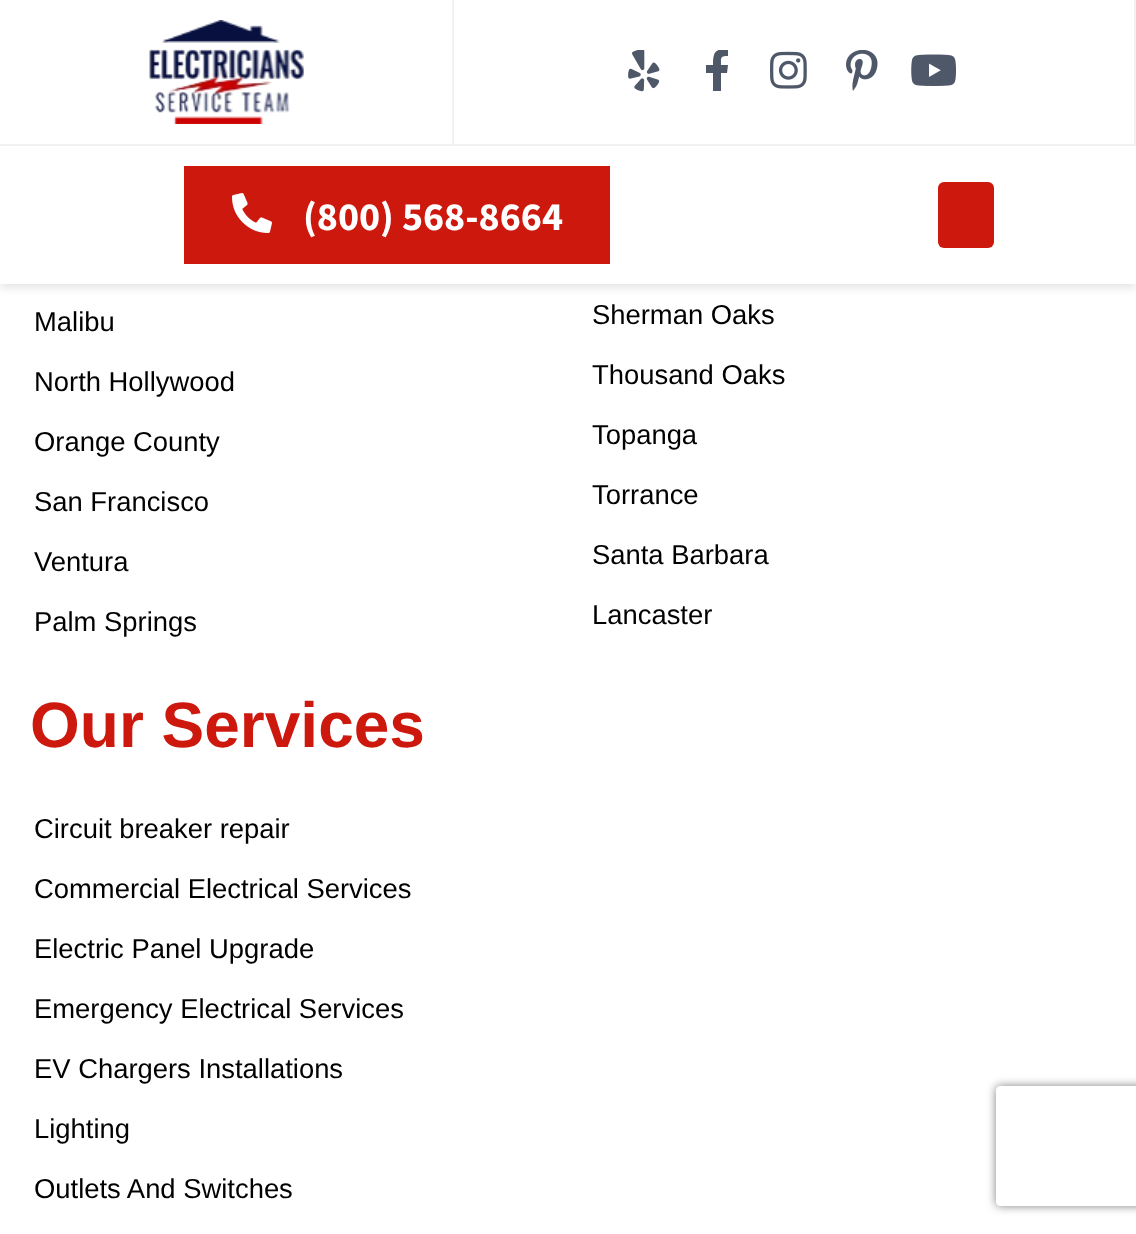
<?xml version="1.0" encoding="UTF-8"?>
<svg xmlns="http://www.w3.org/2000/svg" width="1136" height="1234">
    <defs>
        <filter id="blur1" x="-50%" y="-200%" width="200%" height="500%"><feGaussianBlur stdDeviation="4"/></filter>
        <clipPath id="clip1"><rect x="454" y="50" width="680" height="42"/></clipPath>
        <clipPath id="clip2"><path d="M 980 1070 H 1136 V 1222 H 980 Z M 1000 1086 H 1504 C 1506 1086 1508 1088 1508 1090 V 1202 C 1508 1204 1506 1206 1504 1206 H 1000 C 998 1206 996 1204 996 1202 V 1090 C 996 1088 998 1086 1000 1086 Z" clip-rule="evenodd"/></clipPath>
        <filter id="blur2" x="-50%" y="-200%" width="200%" height="500%"><feGaussianBlur stdDeviation="5"/></filter>
    </defs>
    <rect width="100%" height="100%" fill="#FFFFFF"/>
    <rect x="0" y="4" width="1136" height="284" fill="#000000" fill-opacity="0.1" filter="url(#blur1)"/>
    <rect x="0" y="0" width="1136" height="284" fill="#FFFFFF"/>
    <rect x="452" y="0" width="2" height="144" fill="#F1F1F1"/>
    <image x="149" y="20" width="155" height="104" href="img_01.png"/>
    <rect x="1134" y="0" width="2" height="144" fill="#F1F1F1"/>
    <image x="628" y="50" width="32" height="42" href="img_02.png"/>
    <g clip-path="url(#clip1)">
        <path d="M 727 73 H 721 V 91 H 713 V 73 H 706 V 65 H 713 C 713 52 715 48 728 50 V 56 C 720 56 721 58 721 65 H 728 Z" fill="#4F5869"/>
    </g>
    <image x="770" y="51" width="37" height="38" href="img_03.png"/>
    <image x="846" y="50" width="32" height="41" href="img_04.png"/>
    <image x="911" y="54" width="45" height="32" href="img_05.png"/>
    <rect x="0" y="144" width="1136" height="2" fill="#F1F1F1"/>
    <rect x="184" y="166" width="426" height="98" fill="#CD180E"/>
    <image x="232" y="193" width="40" height="40" href="img_06.png"/>
    <text x="303" y="230" font-family="Source Sans Pro" font-size="40" font-weight="700" fill="#FFFFFF">(800) 568-8664</text>
    <rect x="938" y="182" width="56" height="66" rx="6" fill="#CD180E"/>
    <text x="34" y="331" font-family="Liberation Sans" font-size="27.4" fill="#000000">Malibu</text>
    <text x="34" y="391" font-family="Liberation Sans" font-size="27.4" fill="#000000">North Hollywood</text>
    <text x="34" y="451" font-family="Liberation Sans" font-size="27.4" fill="#000000">Orange County</text>
    <text x="34" y="511" font-family="Liberation Sans" font-size="27.4" fill="#000000">San Francisco</text>
    <text x="34" y="571" font-family="Liberation Sans" font-size="27.4" fill="#000000">Ventura</text>
    <text x="34" y="631" font-family="Liberation Sans" font-size="27.4" fill="#000000">Palm Springs</text>
    <text x="592" y="324" font-family="Liberation Sans" font-size="27.4" fill="#000000">Sherman Oaks</text>
    <text x="592" y="384" font-family="Liberation Sans" font-size="27.4" fill="#000000">Thousand Oaks</text>
    <text x="592" y="444" font-family="Liberation Sans" font-size="27.4" fill="#000000">Topanga</text>
    <text x="592" y="504" font-family="Liberation Sans" font-size="27.4" fill="#000000">Torrance</text>
    <text x="592" y="564" font-family="Liberation Sans" font-size="27.4" fill="#000000">Santa Barbara</text>
    <text x="592" y="624" font-family="Liberation Sans" font-size="27.4" fill="#000000">Lancaster</text>
    <text x="30" y="747" font-family="Liberation Sans" font-size="64" font-weight="700" fill="#CD180E">Our Services</text>
    <text x="34" y="838" font-family="Liberation Sans" font-size="27.4" fill="#000000">Circuit breaker repair</text>
    <text x="34" y="898" font-family="Liberation Sans" font-size="27.4" fill="#000000">Commercial Electrical Services</text>
    <text x="34" y="958" font-family="Liberation Sans" font-size="27.4" fill="#000000">Electric Panel Upgrade</text>
    <text x="34" y="1018" font-family="Liberation Sans" font-size="27.4" fill="#000000">Emergency Electrical Services</text>
    <text x="34" y="1078" font-family="Liberation Sans" font-size="27.4" fill="#000000">EV Chargers Installations</text>
    <text x="34" y="1138" font-family="Liberation Sans" font-size="27.4" fill="#000000">Lighting</text>
    <text x="34" y="1198" font-family="Liberation Sans" font-size="27.4" fill="#000000">Outlets And Switches</text>
    <g clip-path="url(#clip2)">
        <rect x="996" y="1086" width="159" height="120" rx="4" fill="#808080" filter="url(#blur2)"/>
    </g>
</svg>
